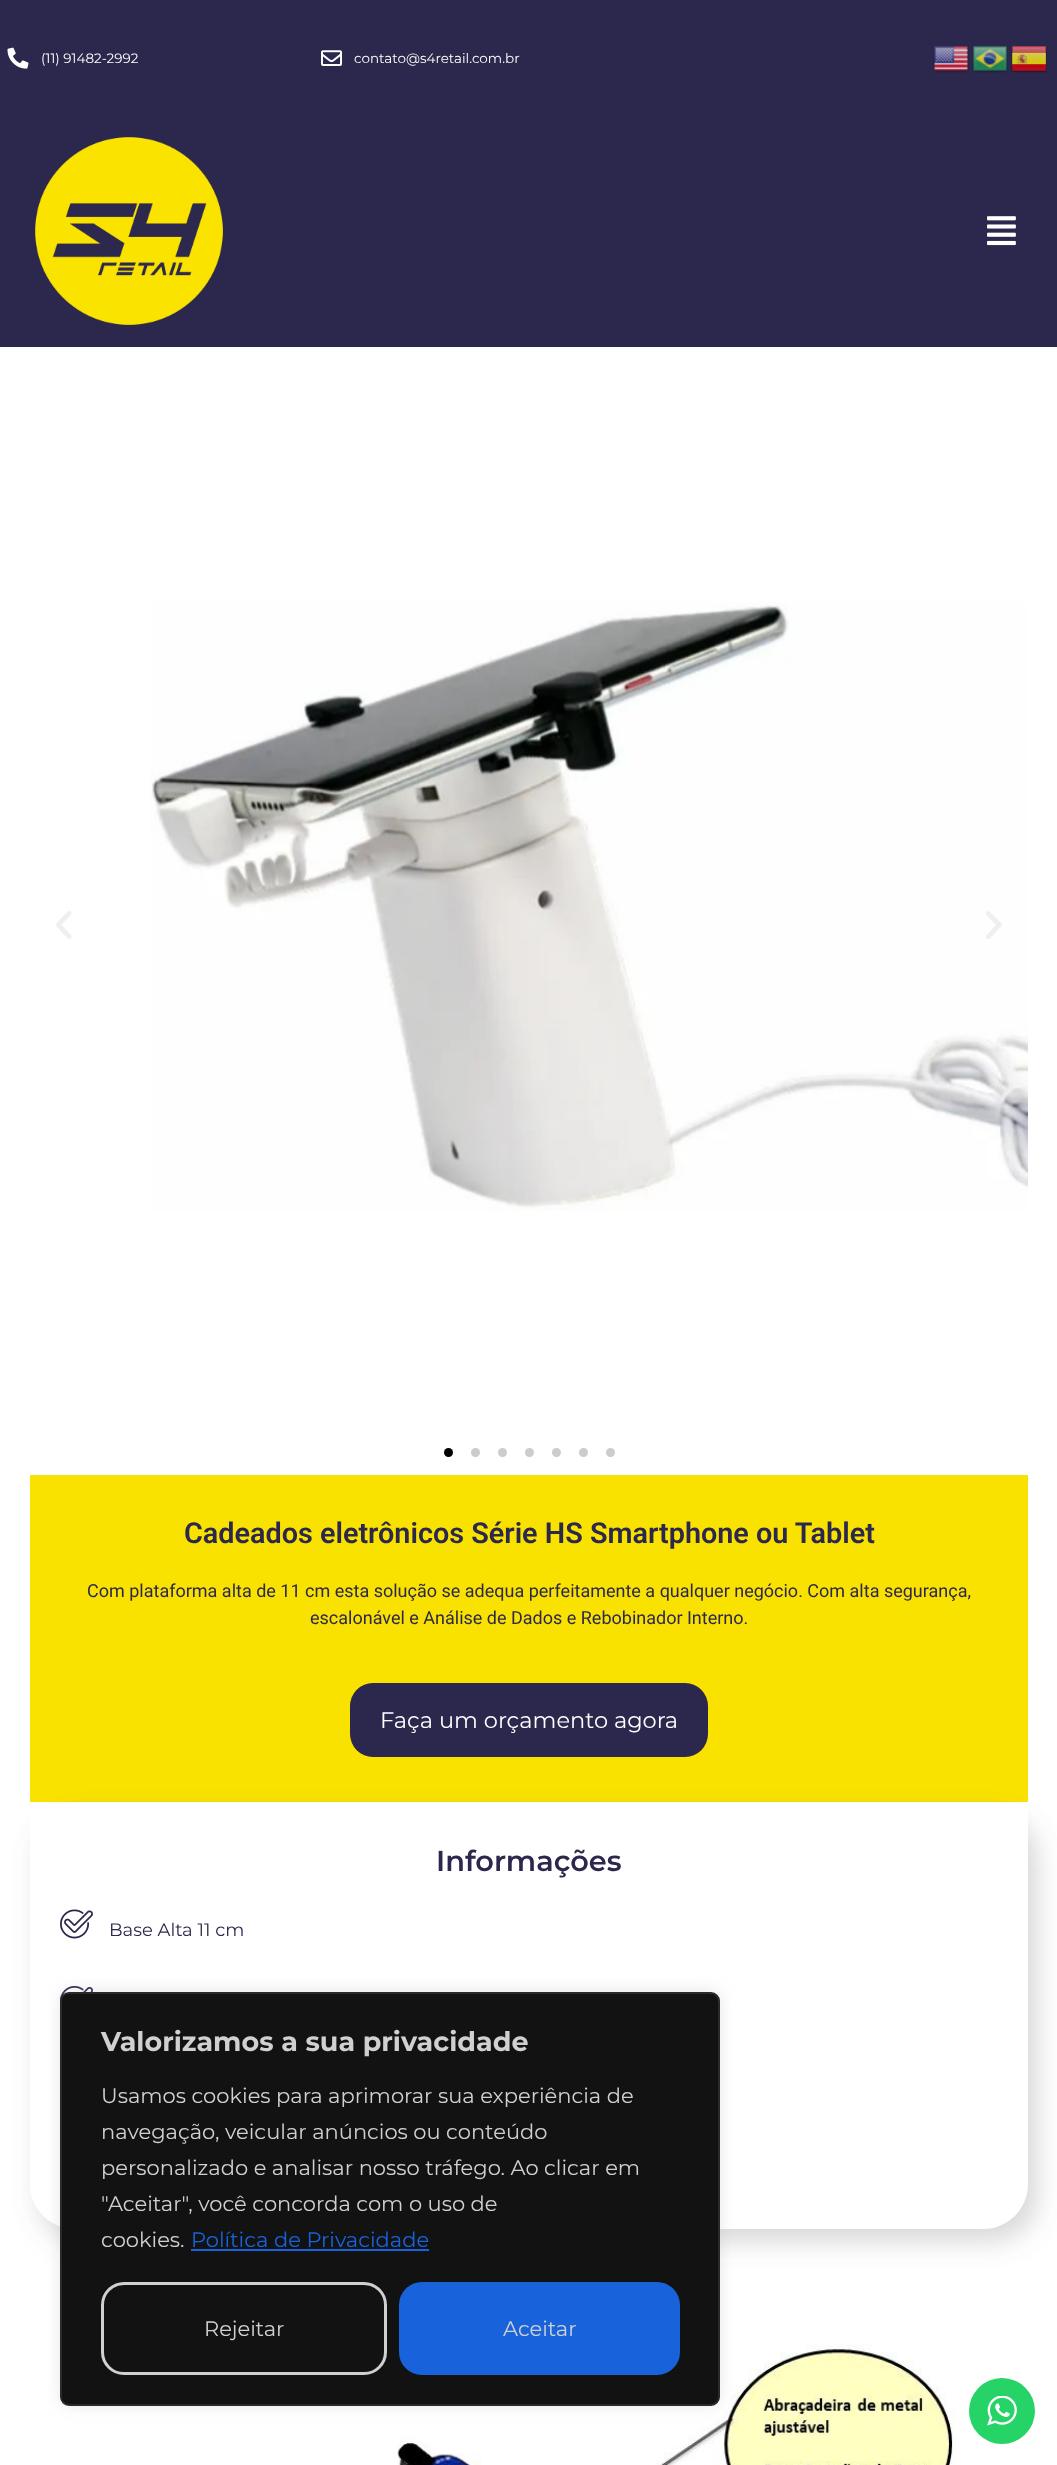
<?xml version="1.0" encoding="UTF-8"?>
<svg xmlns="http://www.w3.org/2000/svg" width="1057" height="2465">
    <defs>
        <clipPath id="clip1"><path d="M 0 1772 H 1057 V 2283 H 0 Z M 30 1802 H 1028 V 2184 C 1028 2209 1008 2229 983 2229 H 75 C 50 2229 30 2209 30 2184 Z" clip-rule="evenodd"/></clipPath>
        <filter id="blur1" x="-50%" y="-200%" width="200%" height="500%"><feGaussianBlur stdDeviation="13.5"/></filter>
        <filter id="blur2" x="-50%" y="-200%" width="200%" height="500%"><feGaussianBlur stdDeviation="7.5"/></filter>
    </defs>
    <rect width="100%" height="100%" fill="#FFFFFF"/>
    <rect x="0" y="0" width="1057" height="347" fill="#2C284D"/>
    <image x="7" y="47" width="22" height="22" href="img_01.png"/>
    <text x="41" y="63" font-family="Montserrat" font-size="13.5" fill="#FFFFFF">(11) 91482-2992</text>
    <image x="321" y="50" width="21" height="16" href="img_02.png"/>
    <text x="354" y="63" font-family="Montserrat" font-size="13.5" fill="#FFFFFF">contato@s4retail.com.br</text>
    <image x="933" y="46" width="36" height="27" href="img_03.png"/>
    <image x="972" y="46" width="36" height="27" href="img_04.png"/>
    <image x="1011" y="46" width="36" height="27" href="img_05.png"/>
    <image x="35" y="137" width="188" height="188" href="img_06.png"/>
    <image x="987" y="216" width="29" height="30" href="img_07.png"/>
    <image x="56" y="911" width="16" height="28" href="img_08.png"/>
    <image x="150" y="602" width="878" height="609" href="img_09.png"/>
    <image x="986" y="911" width="16" height="28" href="img_10.png"/>
    <circle cx="448.5" cy="1452.5" r="4.5" fill="#000000"/>
    <circle cx="475.5" cy="1452.5" r="4.5" fill="#CCCCCC"/>
    <circle cx="502.5" cy="1452.5" r="4.5" fill="#CCCCCC"/>
    <circle cx="529.5" cy="1452.5" r="4.5" fill="#CCCCCC"/>
    <circle cx="556.5" cy="1452.5" r="4.5" fill="#CCCCCC"/>
    <circle cx="583.5" cy="1452.5" r="4.5" fill="#CCCCCC"/>
    <circle cx="610.5" cy="1452.5" r="4.5" fill="#CCCCCC"/>
    <rect x="30" y="1475" width="998" height="327" fill="#FAE200"/>
    <text x="184" y="1543" font-family="Roboto" font-size="28.8" font-weight="600" fill="#2C284D">Cadeados eletrônicos Série HS Smartphone ou Tablet</text>
    <text x="87" y="1597" font-family="Roboto" font-size="18" fill="#2C284D">Com plataforma alta de 11 cm esta solução se adequa perfeitamente a qualquer negócio. Com alta segurança,</text>
    <text x="310" y="1624" font-family="Roboto" font-size="18" fill="#2C284D">escalonável e Análise de Dados e Rebobinador Interno.</text>
    <rect x="350" y="1683" width="358" height="74" rx="23" fill="#2C284D"/>
    <text x="380" y="1728" font-family="Montserrat" font-size="22.5" fill="#FFFFFF">Faça um orçamento agora</text>
    <g clip-path="url(#clip1)">
        <rect x="39" y="1814" width="998" height="427" rx="45" fill="#6A6A6A" fill-opacity="0.28" filter="url(#blur1)"/>
    </g>
    <text x="436" y="1871" font-family="Montserrat" font-size="28.8" font-weight="600" fill="#2C284D">Informações</text>
    <image x="60" y="1909" width="33" height="30" href="img_11.png"/>
    <text x="109" y="1936" font-family="Montserrat" font-size="18" fill="#2C284D">Base Alta 11 cm</text>
    <image x="60" y="1986" width="33" height="15" href="img_12.png"/>
    <image x="397" y="2344" width="560" height="121" href="img_13.png"/>
    <rect x="60" y="1991" width="660" height="414" rx="9" fill="#ACABAB" fill-opacity="0.3" filter="url(#blur2)"/>
    <rect x="61" y="1993" width="658" height="412" rx="8" fill="#121212" stroke="#2A2A2A" stroke-width="2"/>
    <text x="101" y="2051" font-family="Montserrat" font-size="27" font-weight="700" fill="#D0D0D0">Valorizamos a sua privacidade</text>
    <text font-family="Montserrat" font-size="21" fill="#D0D0D0">
        <tspan x="101" y="2103">Usamos cookies para aprimorar sua experiência de</tspan>
        <tspan x="101" y="2139">navegação, veicular anúncios ou conteúdo</tspan>
        <tspan x="101" y="2175">personalizado e analisar nosso tráfego. Ao clicar em</tspan>
        <tspan x="101" y="2211">"Aceitar", você concorda com o uso de</tspan>
        <tspan x="101" y="2247">cookies.</tspan>
    </text>
    <text x="191" y="2247" font-family="Montserrat" font-size="21" fill="#1863DC">Política de Privacidade</text>
    <rect x="191" y="2249" width="238" height="2" fill="#1863DC"/>
    <rect x="102.5" y="2283.5" width="283" height="90" rx="21.5" fill="none" stroke="#D0D0D0" stroke-width="3"/>
    <text x="204" y="2336" font-family="Montserrat" font-size="21" fill="#D0D0D0">Rejeitar</text>
    <rect x="400.5" y="2283.5" width="278" height="90" rx="21.5" fill="#1863DC" stroke="#1863DC" stroke-width="3"/>
    <text x="503" y="2336" font-family="Montserrat" font-size="21" fill="#D0D0D0">Aceitar</text>
    <circle cx="1002" cy="2411" r="33" fill="#25D366"/>
    <image x="987" y="2396" width="30" height="30" href="img_14.png"/>
</svg>
